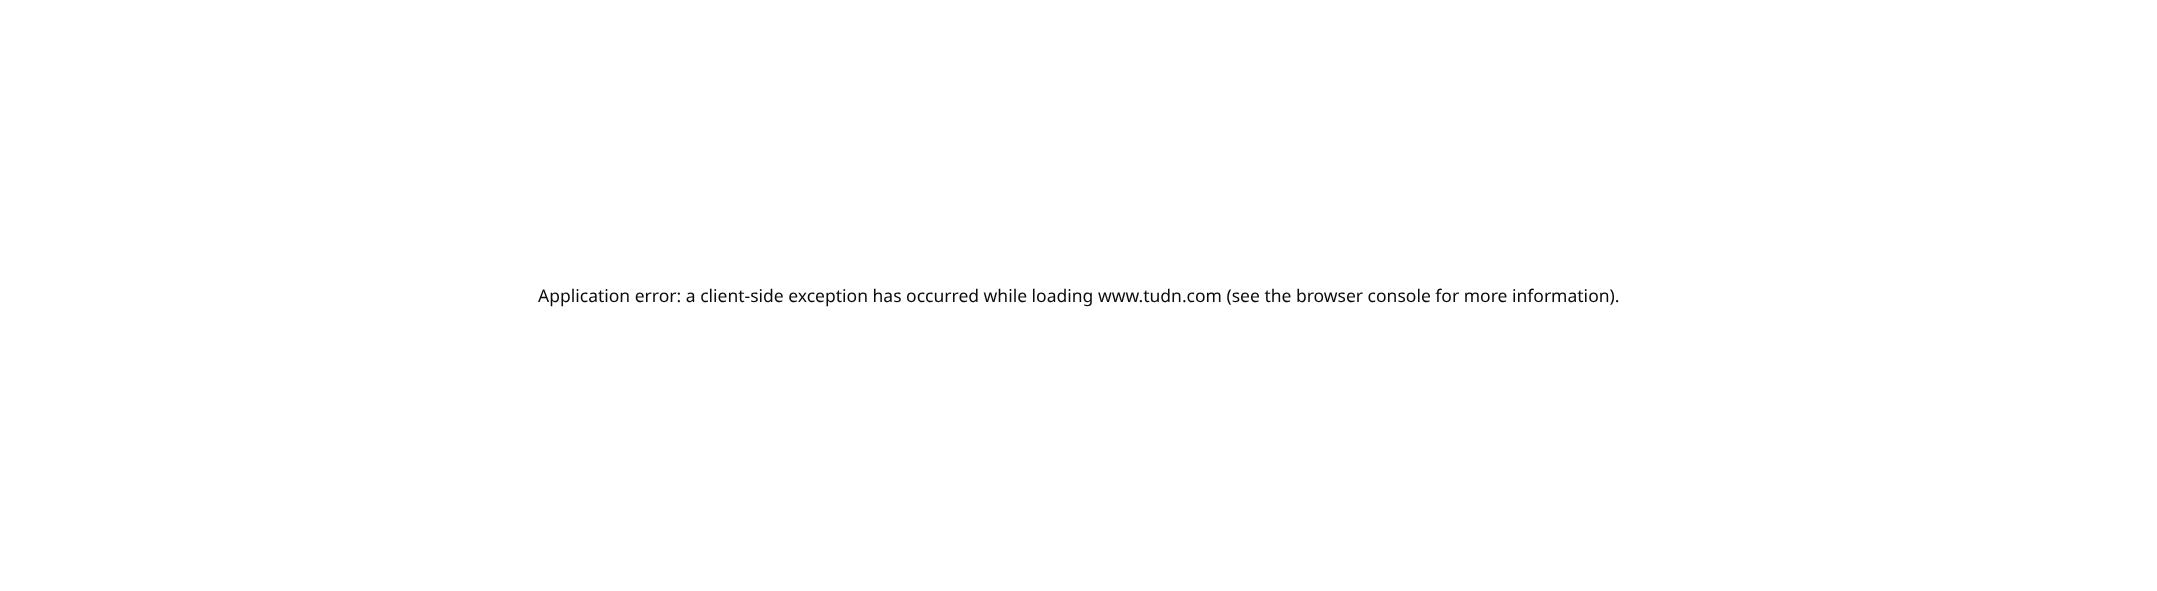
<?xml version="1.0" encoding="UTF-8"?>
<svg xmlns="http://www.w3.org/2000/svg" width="2157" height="591">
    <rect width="100%" height="100%" fill="#FFFFFF"/>
    <text x="538" y="302" font-family="Noto Sans" font-size="17.5" fill="#0A0B0B">Application error: a client-side exception has occurred while loading www.tudn.com (see the browser console for more information).</text>
</svg>
